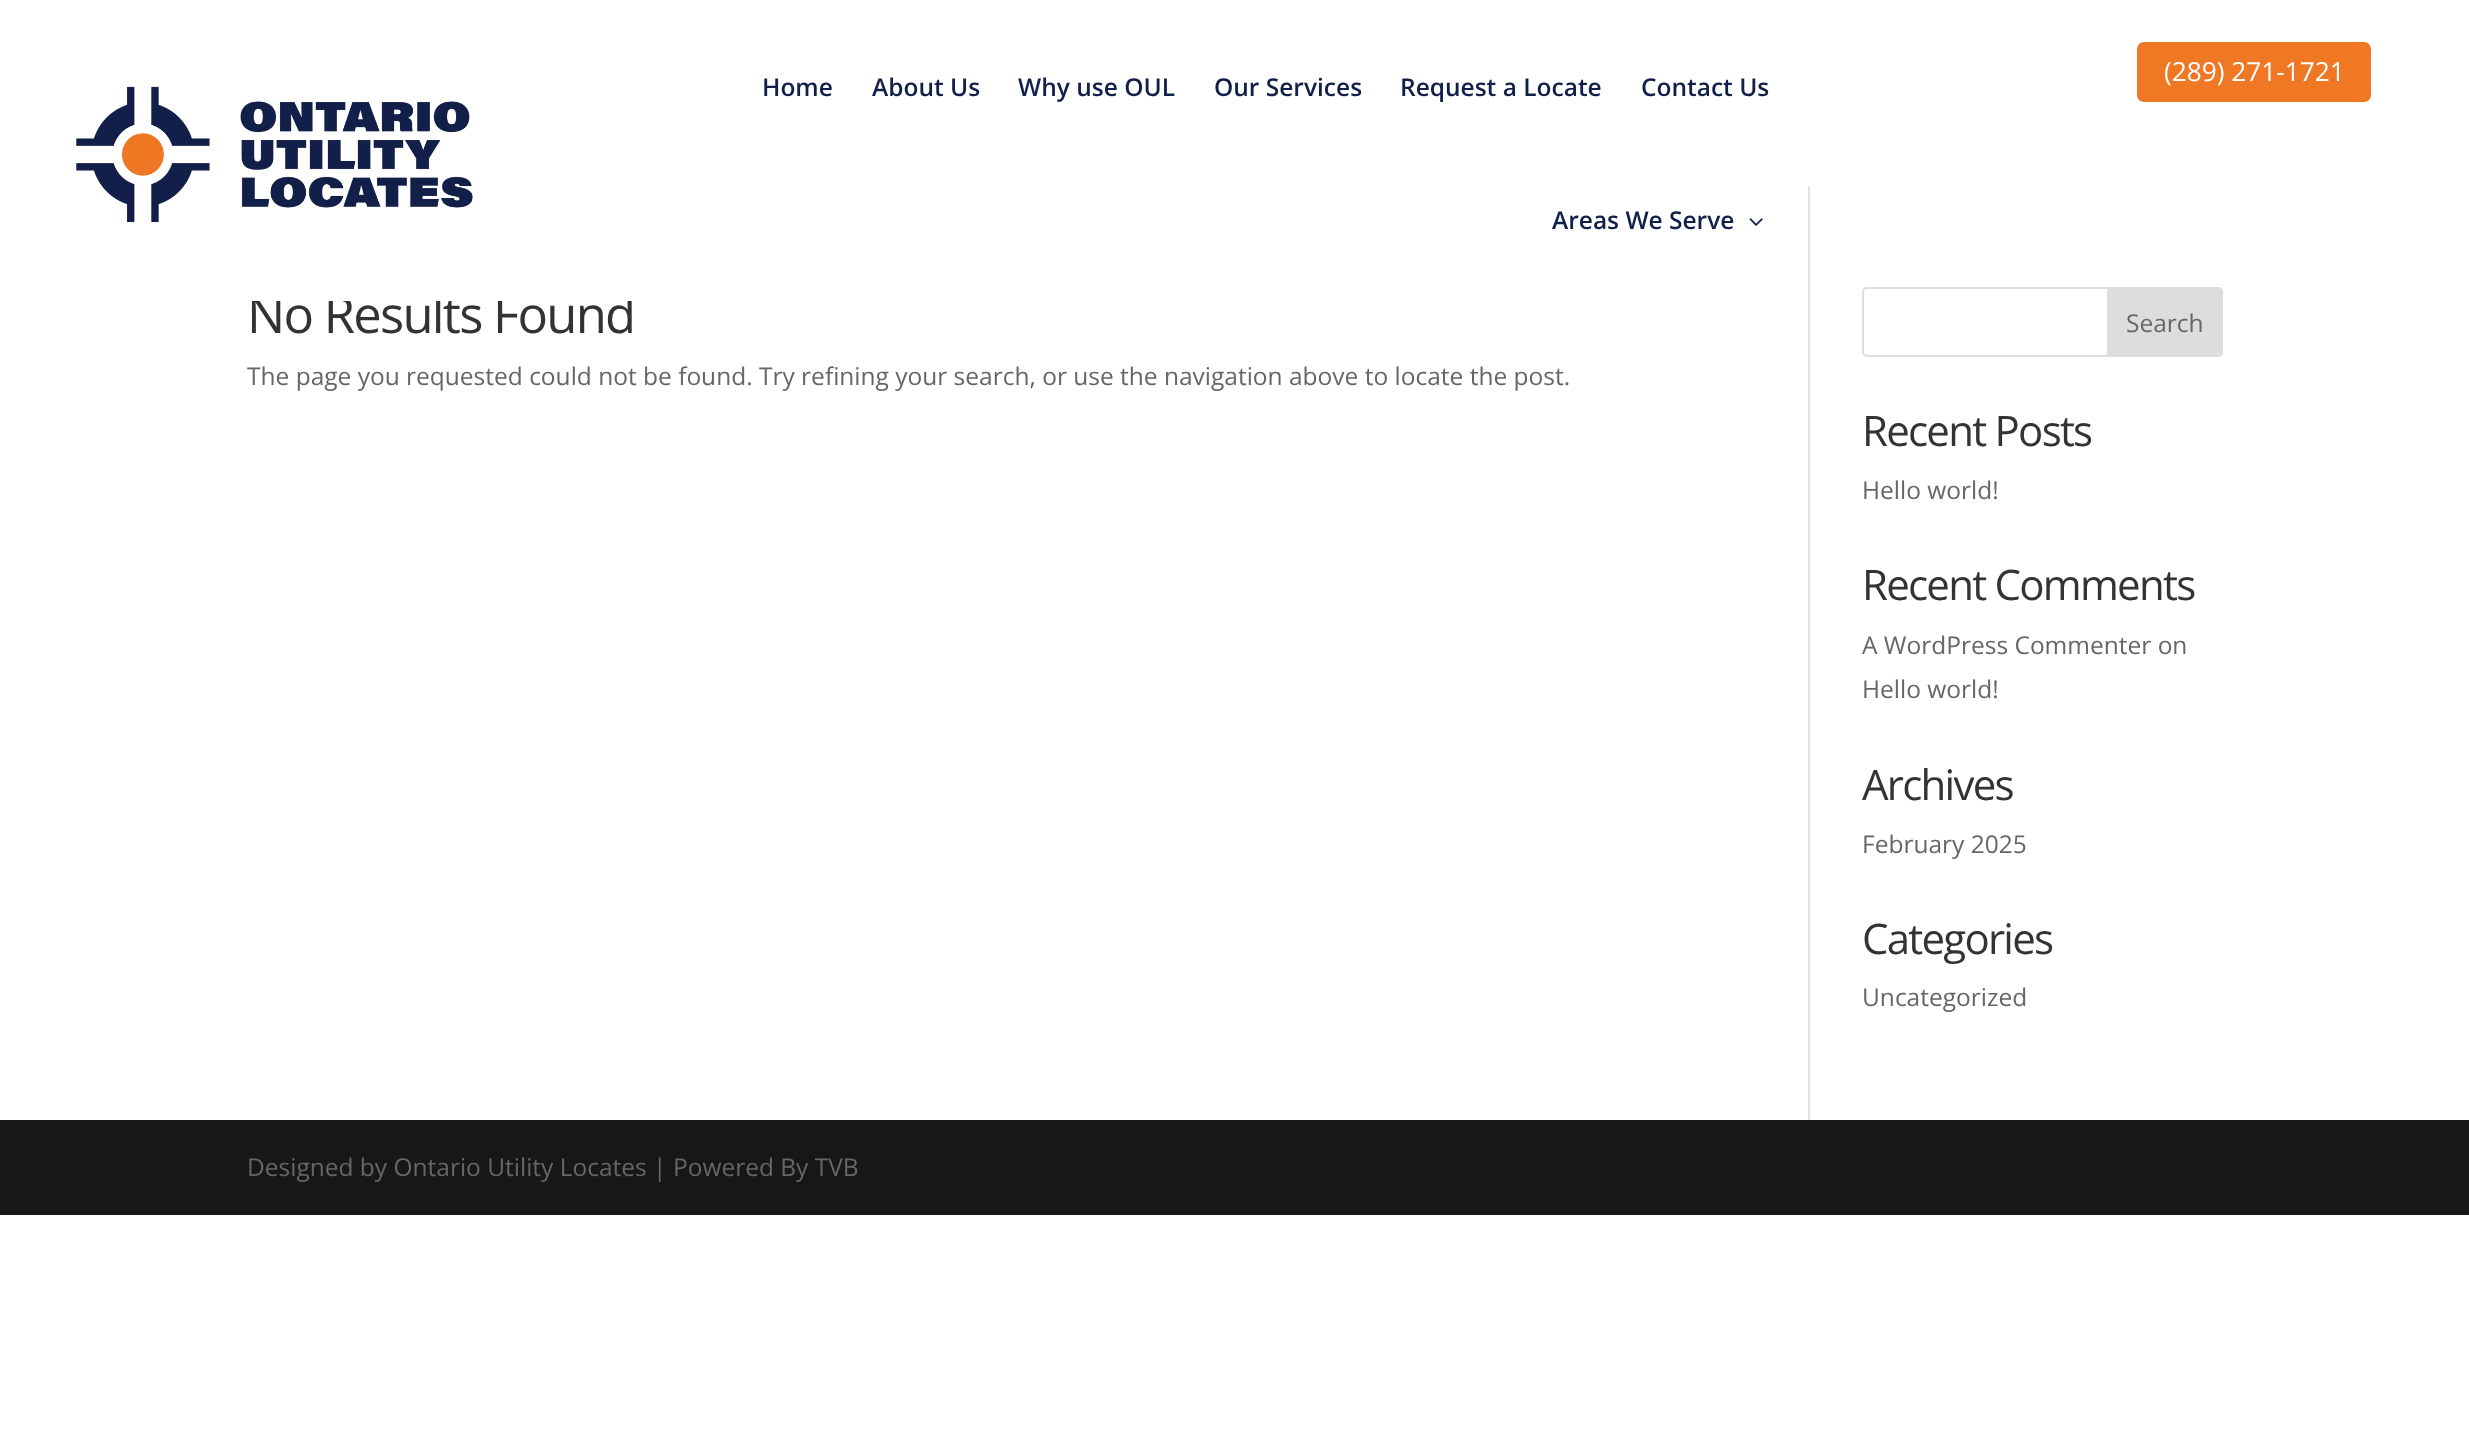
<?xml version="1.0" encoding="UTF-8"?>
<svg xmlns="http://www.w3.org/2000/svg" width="2469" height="1434">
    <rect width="100%" height="100%" fill="#FFFFFF"/>
    <rect x="2137" y="42" width="234" height="60" rx="7" fill="#F07724"/>
    <text x="2164" y="81" font-family="Open Sans" font-size="26.25" fill="#FFFFFF">(289) 271-1721</text>
    <text x="247" y="333" font-family="Open Sans" font-size="50.75" letter-spacing="-1.75" fill="#333333">No Results Found</text>
    <rect x="251" y="294" width="381" height="7" fill="#FFFFFF"/>
    <image x="76" y="86" width="397" height="137" href="img_01.png"/>
    <text x="762" y="96" font-family="Open Sans" font-size="24.5" font-weight="600" fill="#121F49">Home</text>
    <text x="872" y="96" font-family="Open Sans" font-size="24.5" font-weight="600" fill="#121F49">About Us</text>
    <text x="1018" y="96" font-family="Open Sans" font-size="24.5" font-weight="600" fill="#121F49">Why use OUL</text>
    <text x="1214" y="96" font-family="Open Sans" font-size="24.5" font-weight="600" fill="#121F49">Our Services</text>
    <text x="1400" y="96" font-family="Open Sans" font-size="24.5" font-weight="600" fill="#121F49">Request a Locate</text>
    <text x="1641" y="96" font-family="Open Sans" font-size="24.5" font-weight="600" fill="#121F49">Contact Us</text>
    <text x="1552" y="229" font-family="Open Sans" font-size="24.5" font-weight="600" fill="#121F49">Areas We Serve</text>
    <image x="1749" y="218" width="14" height="8" href="img_02.png"/>
    <rect x="1808" y="186" width="2" height="934" fill="#E2E2E2"/>
    <text x="247" y="385" font-family="Open Sans" font-size="24.5" fill="#666666">The page you requested could not be found. Try refining your search, or use the navigation above to locate the post.</text>
    <rect x="1863" y="288" width="359" height="68" rx="4" fill="none" stroke="#DDDDDD" stroke-width="2"/>
    <path d="M 2108 288 H 2218 C 2220 288 2222 290 2222 292 V 352 C 2222 354 2220 356 2218 356 H 2108 Z" fill="#DDDDDD" stroke="#DDDDDD" stroke-width="2"/>
    <text x="2126" y="332" font-family="Open Sans" font-size="24.5" fill="#666666">Search</text>
    <text x="1862" y="446" font-family="Open Sans" font-size="42" letter-spacing="-1.75" fill="#333333">Recent Posts</text>
    <text x="1862" y="499" font-family="Open Sans" font-size="24.5" fill="#666666">Hello world!</text>
    <text x="1862" y="600" font-family="Open Sans" font-size="42" letter-spacing="-1.75" fill="#333333">Recent Comments</text>
    <text font-family="Open Sans" font-size="24.5" fill="#666666">
        <tspan x="1862" y="654">A WordPress Commenter on</tspan>
        <tspan x="1862" y="698">Hello world!</tspan>
    </text>
    <text x="1862" y="800" font-family="Open Sans" font-size="42" letter-spacing="-1.75" fill="#333333">Archives</text>
    <text x="1862" y="853" font-family="Open Sans" font-size="24.5" fill="#666666">February 2025</text>
    <text x="1862" y="954" font-family="Open Sans" font-size="42" letter-spacing="-1.75" fill="#333333">Categories</text>
    <text x="1862" y="1006" font-family="Open Sans" font-size="24.5" fill="#666666">Uncategorized</text>
    <rect x="0" y="1120" width="2469" height="95" fill="#171717"/>
    <text x="247" y="1176" font-family="Open Sans" font-size="24.5" fill="#666666">Designed by Ontario Utility Locates | Powered By TVB</text>
</svg>
